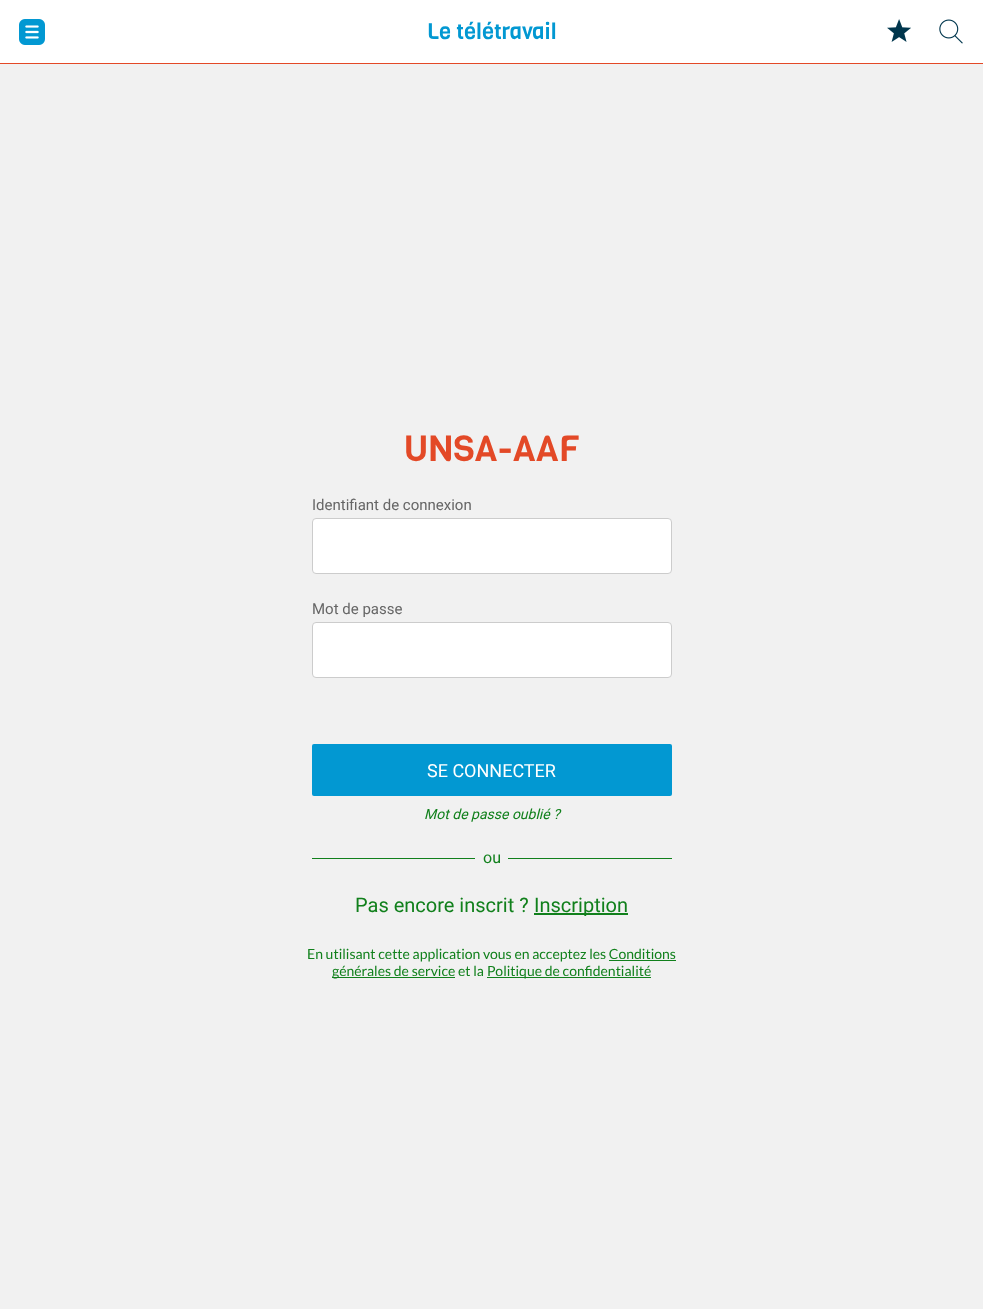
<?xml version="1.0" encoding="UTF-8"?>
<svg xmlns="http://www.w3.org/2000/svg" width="983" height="1309">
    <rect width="100%" height="100%" fill="#F1F1F1"/>
    <rect x="0" y="0" width="983" height="63" fill="#FFFFFF"/>
    <rect x="0" y="63" width="983" height="1" fill="#E34927"/>
    <image x="19" y="19" width="26" height="26" href="img_01.png"/>
    <text x="427" y="39" font-family="Viga" font-size="22" fill="#0298D2">Le télétravail</text>
    <image x="887" y="19" width="24" height="23" href="img_02.png"/>
    <image x="939" y="19" width="24" height="25" href="img_03.png"/>
    <text x="404" y="461" font-family="Viga" font-size="36" fill="#E34927">UNSA-AAF</text>
    <text x="312" y="510" font-family="Roboto" font-size="15" fill="#666666">Identifiant de connexion</text>
    <rect x="312.5" y="518.5" width="359" height="55" rx="3.5" fill="#FFFFFF" stroke="#CCCCCC"/>
    <text x="312" y="614" font-family="Roboto" font-size="15" fill="#666666">Mot de passe</text>
    <rect x="312.5" y="622.5" width="359" height="55" rx="3.5" fill="#FFFFFF" stroke="#CCCCCC"/>
    <rect x="312" y="744" width="360" height="52" rx="2" fill="#0298D2"/>
    <text x="427" y="777" font-family="Roboto" font-size="18" fill="#FFFFFF">SE CONNECTER</text>
    <text x="424" y="819" font-family="Roboto" font-size="14" font-style="italic" fill="#11801C">Mot de passe oublié ?</text>
    <rect x="312" y="858" width="163" height="1" fill="#11801C"/>
    <text x="483" y="863" font-family="Roboto" font-size="16" fill="#11801C">ou</text>
    <rect x="508" y="858" width="164" height="1" fill="#11801C"/>
    <text x="355" y="912" font-family="Roboto" font-size="20" fill="#11801C">Pas encore inscrit ?</text>
    <rect x="534" y="913" width="94" height="2" fill="#11801C"/>
    <text x="534" y="912" font-family="Roboto" font-size="20" fill="#11801C">Inscription</text>
    <text x="307" y="959" font-family="Lato" font-size="14" fill="#11801C">En utilisant cette application vous en acceptez les Conditions</text>
    <rect x="332" y="977" width="123" height="1" fill="#11801C"/>
    <text x="332" y="976" font-family="Lato" font-size="14" fill="#11801C">générales de service et la</text>
    <rect x="609" y="960" width="67" height="1" fill="#11801C"/>
    <rect x="487" y="977" width="164" height="1" fill="#11801C"/>
    <text x="487" y="976" font-family="Lato" font-size="14" fill="#11801C">Politique de confidentialité</text>
</svg>
